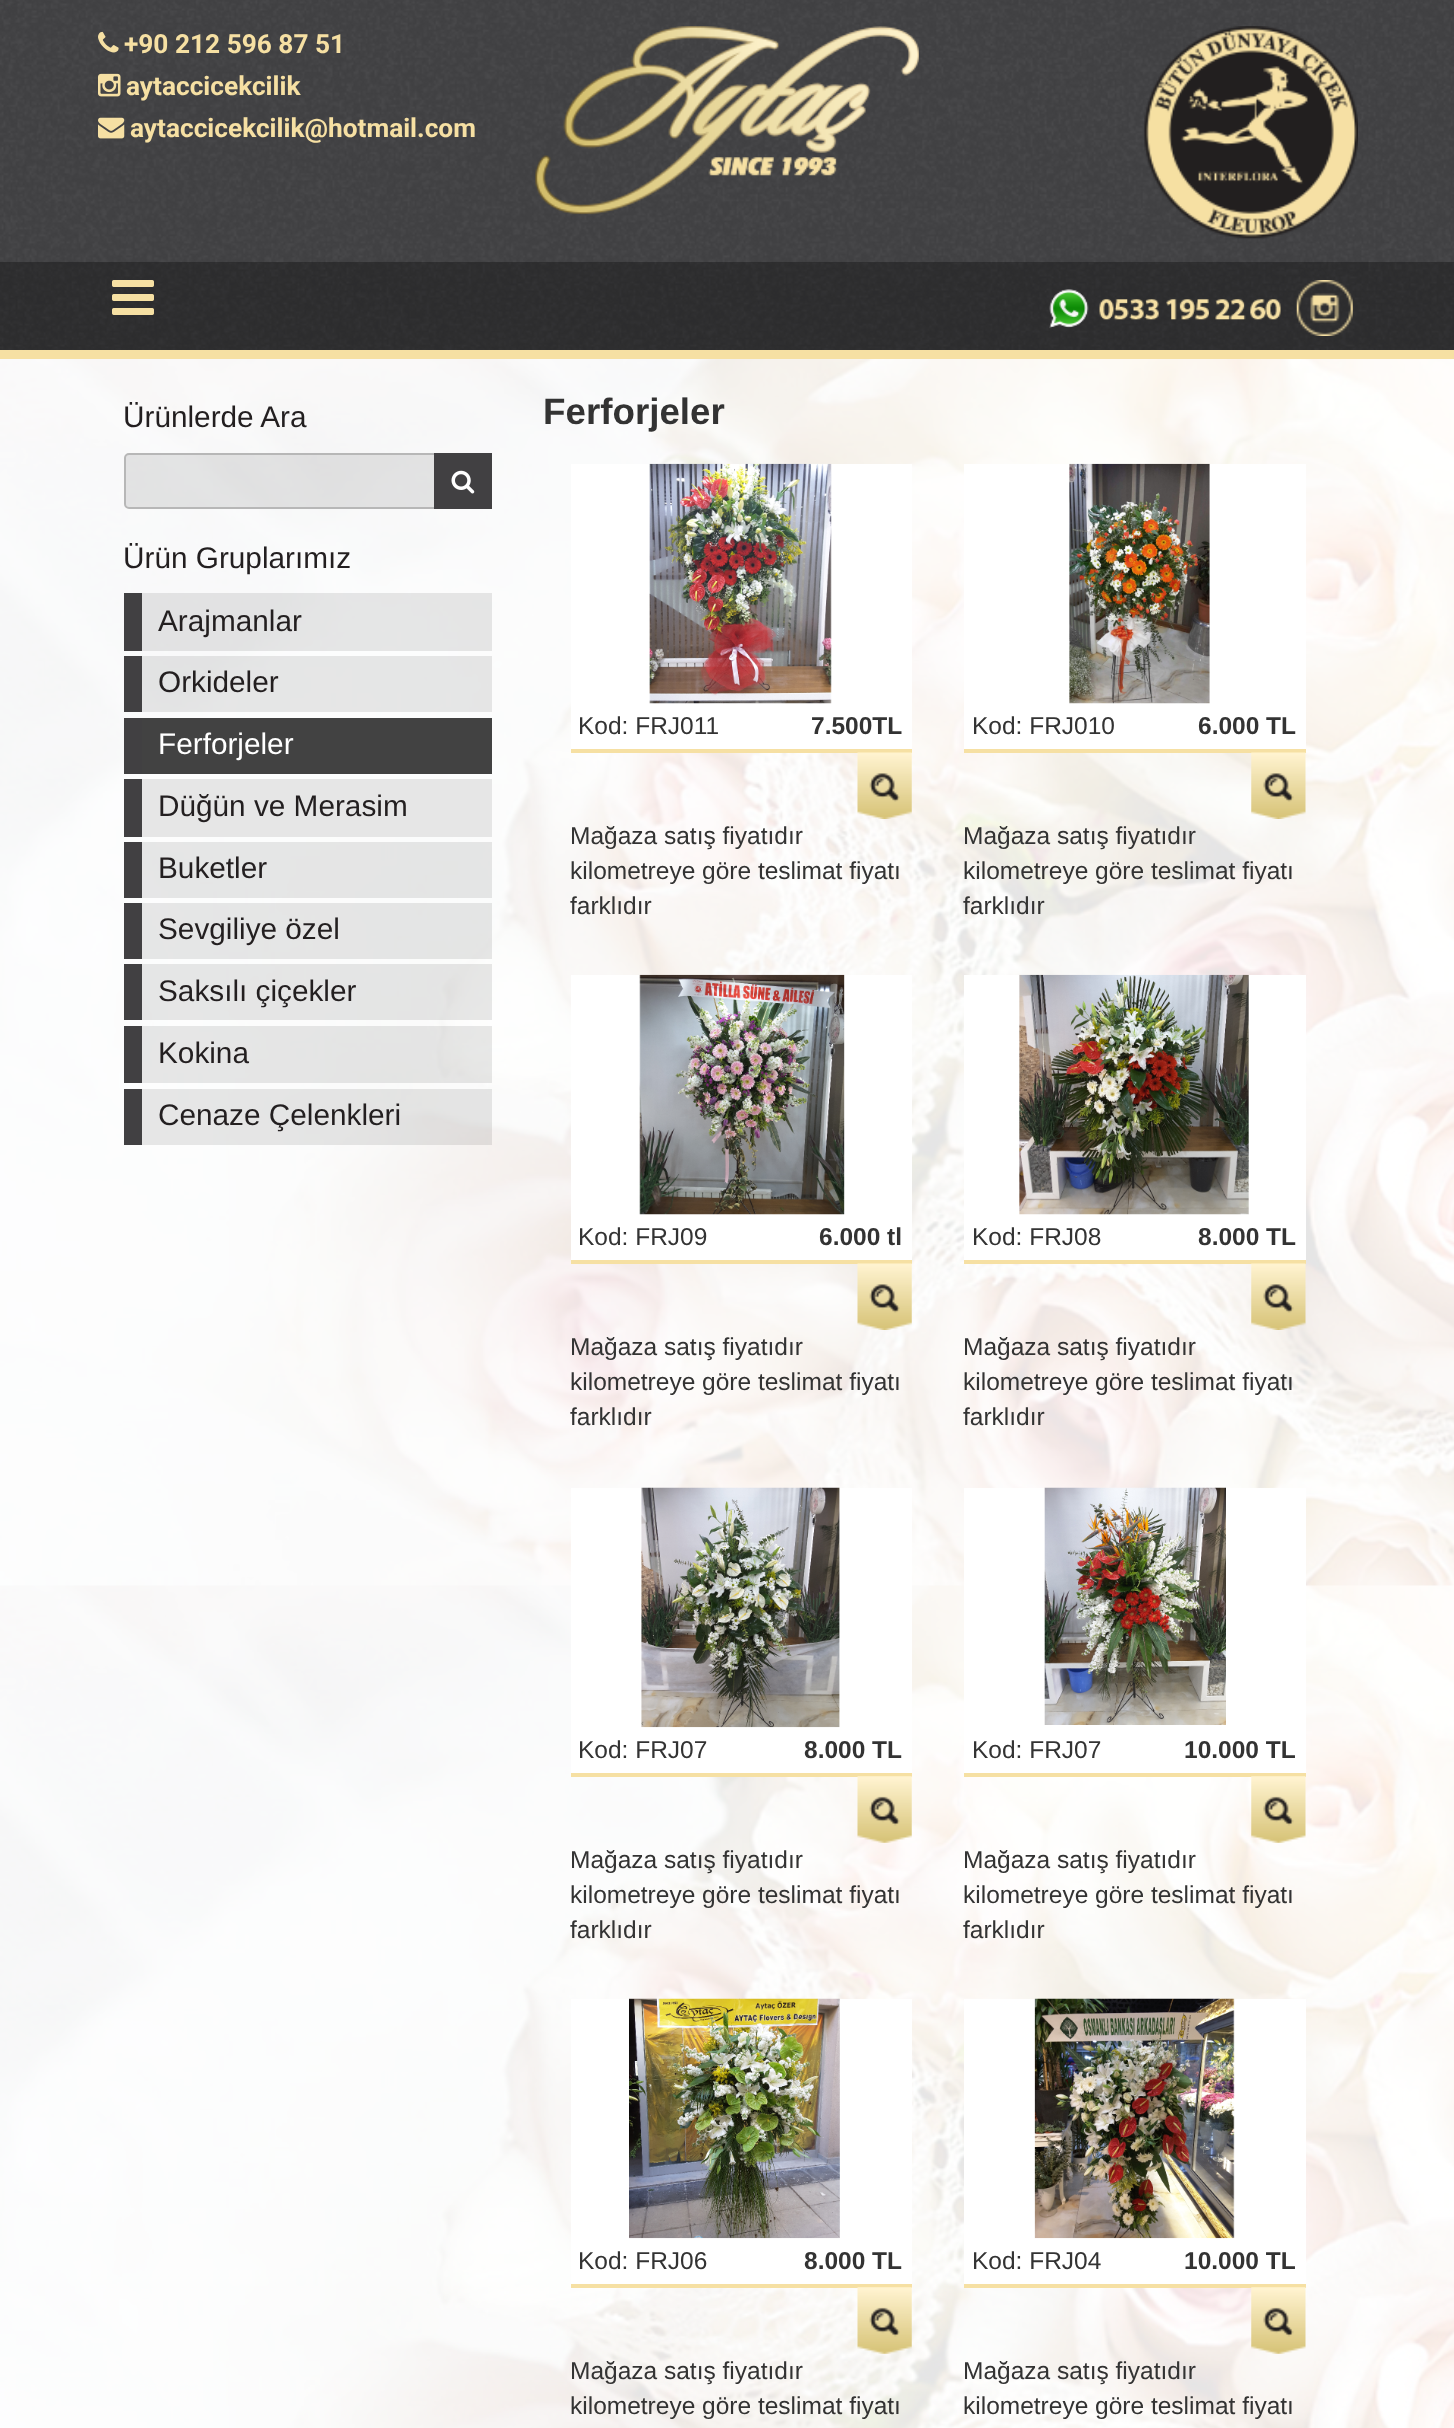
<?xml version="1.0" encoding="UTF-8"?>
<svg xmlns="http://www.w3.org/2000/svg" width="1454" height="2428">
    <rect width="100%" height="100%" fill="#FFFFFF"/>
    <image x="0" y="0" width="1454" height="350" href="img_01.png"/>
    <image x="98" y="31" width="21" height="22" href="img_02.png"/>
    <text x="124" y="53" font-family="Roboto" font-size="26.25" font-weight="700" fill="#F6E0A3">+90 212 596 87 51</text>
    <image x="98" y="73" width="23" height="24" href="img_03.png"/>
    <text x="126" y="95" font-family="Roboto" font-size="26.25" font-weight="700" fill="#F6E0A3">aytaccicekcilik</text>
    <image x="98" y="117" width="27" height="22" href="img_04.png"/>
    <text x="130" y="137" font-family="Roboto" font-size="26.25" font-weight="700" fill="#F6E0A3">aytaccicekcilik@hotmail.com</text>
    <image x="535" y="26" width="384" height="189" href="img_05.png"/>
    <image x="1144" y="26" width="214" height="213" href="img_06.png"/>
    <rect x="0" y="262" width="1454" height="88" fill="#000000" fill-opacity="0.3"/>
    <image x="112" y="280" width="42" height="35" href="img_07.png"/>
    <image x="1049" y="289" width="232" height="40" href="img_08.png"/>
    <image x="1296" y="280" width="57" height="56" href="img_09.png"/>
    <rect x="0" y="350" width="1454" height="9" fill="#F6E0A3"/>
    <image x="0" y="359" width="1454" height="2069" href="img_10.png"/>
    <text x="123" y="427" font-family="Liberation Sans" font-size="29.75" fill="#231F20">Ürünlerde Ara</text>
    <rect x="125" y="454" width="366" height="54" rx="4" fill="#414042" fill-opacity="0.12" stroke="#B7B7B7" stroke-width="2"/>
    <rect x="434" y="453" width="58" height="56" fill="#414042"/>
    <image x="451" y="470" width="24" height="24" href="img_11.png"/>
    <text x="123" y="568" font-family="Liberation Sans" font-size="29.75" fill="#231F20">Ürün Gruplarımız</text>
    <rect x="142" y="593" width="350" height="58" fill="#414042" fill-opacity="0.12"/>
    <rect x="124" y="593" width="18" height="58" fill="#414042"/>
    <text x="158" y="631" font-family="Liberation Sans" font-size="29.75" fill="#231F20">Arajmanlar</text>
    <rect x="142" y="656" width="350" height="56" fill="#414042" fill-opacity="0.12"/>
    <rect x="124" y="656" width="18" height="56" fill="#414042"/>
    <text x="158" y="692" font-family="Liberation Sans" font-size="29.75" fill="#231F20">Orkideler</text>
    <rect x="142" y="718" width="350" height="56" fill="#424242"/>
    <rect x="124" y="718" width="18" height="56" fill="#414042"/>
    <text x="158" y="754" font-family="Liberation Sans" font-size="29.75" fill="#FFFFFF">Ferforjeler</text>
    <rect x="142" y="779" width="350" height="58" fill="#E6E6E6"/>
    <rect x="124" y="779" width="18" height="58" fill="#414042"/>
    <text x="158" y="816" font-family="Liberation Sans" font-size="29.75" fill="#231F20">Düğün ve Merasim</text>
    <rect x="142" y="842" width="350" height="56" fill="#414042" fill-opacity="0.12"/>
    <rect x="124" y="842" width="18" height="56" fill="#414042"/>
    <text x="158" y="878" font-family="Liberation Sans" font-size="29.75" fill="#231F20">Buketler</text>
    <rect x="142" y="903" width="350" height="56" fill="#414042" fill-opacity="0.12"/>
    <rect x="124" y="903" width="18" height="56" fill="#414042"/>
    <text x="158" y="939" font-family="Liberation Sans" font-size="29.75" fill="#231F20">Sevgiliye özel</text>
    <rect x="142" y="964" width="350" height="56" fill="#414042" fill-opacity="0.12"/>
    <rect x="124" y="964" width="18" height="56" fill="#414042"/>
    <text x="158" y="1001" font-family="Liberation Sans" font-size="29.75" fill="#231F20">Saksılı çiçekler</text>
    <rect x="142" y="1026" width="350" height="57" fill="#414042" fill-opacity="0.12"/>
    <rect x="124" y="1026" width="18" height="57" fill="#414042"/>
    <text x="158" y="1063" font-family="Liberation Sans" font-size="29.75" fill="#231F20">Kokina</text>
    <rect x="142" y="1089" width="350" height="56" fill="#414042" fill-opacity="0.12"/>
    <rect x="124" y="1089" width="18" height="56" fill="#414042"/>
    <text x="158" y="1125" font-family="Liberation Sans" font-size="29.75" fill="#231F20">Cenaze Çelenkleri</text>
    <text x="543" y="424" font-family="Liberation Sans" font-size="36.75" font-weight="700" fill="#333333">Ferforjeler</text>
    <rect x="571" y="464" width="341" height="285" fill="#FFFFFF"/>
    <image x="649" y="463" width="183" height="241" href="img_12.png"/>
    <rect x="571" y="749" width="341" height="4" fill="#F6E0A3"/>
    <text x="578" y="734" font-family="Liberation Sans" font-size="24.5" fill="#333333">Kod: FRJ011</text>
    <text x="811" y="734" font-family="Liberation Sans" font-size="24.5" font-weight="700" fill="#333333">7.500TL</text>
    <image x="857" y="752" width="55" height="67" href="img_13.png"/>
    <text font-family="Liberation Sans" font-size="24.5" fill="#333333">
        <tspan x="570" y="844">Mağaza satış fiyatıdır</tspan>
        <tspan x="570" y="879">kilometreye göre teslimat fiyatı</tspan>
        <tspan x="570" y="914">farklıdır</tspan>
    </text>
    <rect x="964" y="464" width="342" height="285" fill="#FFFFFF"/>
    <image x="1069" y="463" width="141" height="241" href="img_14.png"/>
    <rect x="964" y="749" width="342" height="4" fill="#F6E0A3"/>
    <text x="972" y="734" font-family="Liberation Sans" font-size="24.5" fill="#333333">Kod: FRJ010</text>
    <text x="1198" y="734" font-family="Liberation Sans" font-size="24.5" font-weight="700" fill="#333333">6.000 TL</text>
    <image x="1251" y="752" width="55" height="67" href="img_15.png"/>
    <text font-family="Liberation Sans" font-size="24.5" fill="#333333">
        <tspan x="963" y="844">Mağaza satış fiyatıdır</tspan>
        <tspan x="963" y="879">kilometreye göre teslimat fiyatı</tspan>
        <tspan x="963" y="914">farklıdır</tspan>
    </text>
    <rect x="571" y="975" width="341" height="285" fill="#FFFFFF"/>
    <image x="639" y="974" width="206" height="241" href="img_16.png"/>
    <rect x="571" y="1260" width="341" height="4" fill="#F6E0A3"/>
    <text x="578" y="1245" font-family="Liberation Sans" font-size="24.5" fill="#333333">Kod: FRJ09</text>
    <text x="819" y="1245" font-family="Liberation Sans" font-size="24.5" font-weight="700" fill="#333333">6.000 tl</text>
    <image x="857" y="1263" width="55" height="67" href="img_17.png"/>
    <text font-family="Liberation Sans" font-size="24.5" fill="#333333">
        <tspan x="570" y="1355">Mağaza satış fiyatıdır</tspan>
        <tspan x="570" y="1390">kilometreye göre teslimat fiyatı</tspan>
        <tspan x="570" y="1425">farklıdır</tspan>
    </text>
    <rect x="964" y="975" width="342" height="285" fill="#FFFFFF"/>
    <image x="1019" y="974" width="230" height="241" href="img_18.png"/>
    <rect x="964" y="1260" width="342" height="4" fill="#F6E0A3"/>
    <text x="972" y="1245" font-family="Liberation Sans" font-size="24.5" fill="#333333">Kod: FRJ08</text>
    <text x="1198" y="1245" font-family="Liberation Sans" font-size="24.5" font-weight="700" fill="#333333">8.000 TL</text>
    <image x="1251" y="1263" width="55" height="67" href="img_19.png"/>
    <text font-family="Liberation Sans" font-size="24.5" fill="#333333">
        <tspan x="963" y="1355">Mağaza satış fiyatıdır</tspan>
        <tspan x="963" y="1390">kilometreye göre teslimat fiyatı</tspan>
        <tspan x="963" y="1425">farklıdır</tspan>
    </text>
    <rect x="571" y="1488" width="341" height="285" fill="#FFFFFF"/>
    <image x="641" y="1487" width="199" height="241" href="img_20.png"/>
    <rect x="571" y="1773" width="341" height="4" fill="#F6E0A3"/>
    <text x="578" y="1758" font-family="Liberation Sans" font-size="24.5" fill="#333333">Kod: FRJ07</text>
    <text x="804" y="1758" font-family="Liberation Sans" font-size="24.5" font-weight="700" fill="#333333">8.000 TL</text>
    <image x="857" y="1776" width="55" height="67" href="img_21.png"/>
    <text font-family="Liberation Sans" font-size="24.5" fill="#333333">
        <tspan x="570" y="1868">Mağaza satış fiyatıdır</tspan>
        <tspan x="570" y="1903">kilometreye göre teslimat fiyatı</tspan>
        <tspan x="570" y="1938">farklıdır</tspan>
    </text>
    <rect x="964" y="1488" width="342" height="285" fill="#FFFFFF"/>
    <image x="1044" y="1487" width="182" height="238" href="img_22.png"/>
    <rect x="964" y="1773" width="342" height="4" fill="#F6E0A3"/>
    <text x="972" y="1758" font-family="Liberation Sans" font-size="24.5" fill="#333333">Kod: FRJ07</text>
    <text x="1184" y="1758" font-family="Liberation Sans" font-size="24.5" font-weight="700" fill="#333333">10.000 TL</text>
    <image x="1251" y="1776" width="55" height="67" href="img_23.png"/>
    <text font-family="Liberation Sans" font-size="24.5" fill="#333333">
        <tspan x="963" y="1868">Mağaza satış fiyatıdır</tspan>
        <tspan x="963" y="1903">kilometreye göre teslimat fiyatı</tspan>
        <tspan x="963" y="1938">farklıdır</tspan>
    </text>
    <rect x="571" y="1999" width="341" height="285" fill="#FFFFFF"/>
    <image x="629" y="1998" width="211" height="241" href="img_24.png"/>
    <rect x="571" y="2284" width="341" height="4" fill="#F6E0A3"/>
    <text x="578" y="2269" font-family="Liberation Sans" font-size="24.5" fill="#333333">Kod: FRJ06</text>
    <text x="804" y="2269" font-family="Liberation Sans" font-size="24.5" font-weight="700" fill="#333333">8.000 TL</text>
    <image x="857" y="2287" width="55" height="67" href="img_25.png"/>
    <text font-family="Liberation Sans" font-size="24.5" fill="#333333">
        <tspan x="570" y="2379">Mağaza satış fiyatıdır</tspan>
        <tspan x="570" y="2414">kilometreye göre teslimat fiyatı</tspan>
    </text>
    <rect x="964" y="1999" width="342" height="285" fill="#FFFFFF"/>
    <image x="1034" y="1998" width="201" height="241" href="img_26.png"/>
    <rect x="964" y="2284" width="342" height="4" fill="#F6E0A3"/>
    <text x="972" y="2269" font-family="Liberation Sans" font-size="24.5" fill="#333333">Kod: FRJ04</text>
    <text x="1184" y="2269" font-family="Liberation Sans" font-size="24.5" font-weight="700" fill="#333333">10.000 TL</text>
    <image x="1251" y="2287" width="55" height="67" href="img_27.png"/>
    <text font-family="Liberation Sans" font-size="24.5" fill="#333333">
        <tspan x="963" y="2379">Mağaza satış fiyatıdır</tspan>
        <tspan x="963" y="2414">kilometreye göre teslimat fiyatı</tspan>
    </text>
</svg>
